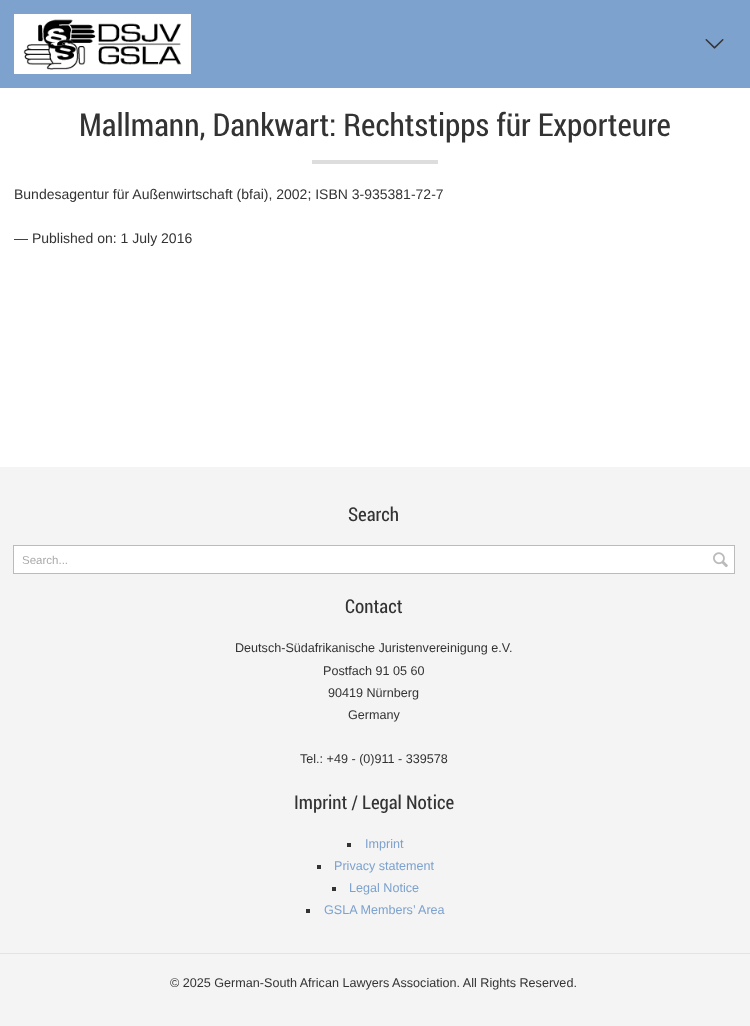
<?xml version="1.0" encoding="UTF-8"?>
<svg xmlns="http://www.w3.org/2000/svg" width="750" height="1026">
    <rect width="100%" height="100%" fill="#FFFFFF"/>
    <rect x="0" y="0" width="750" height="88" fill="#7DA2CE"/>
    <image x="14" y="14" width="177" height="60" href="img_01.png"/>
    <image x="705" y="39" width="19" height="10" href="img_02.png"/>
    <text x="79" y="136" font-family="Roboto Condensed" font-size="31.5" fill="#333333">Mallmann, Dankwart: Rechtstipps für Exporteure</text>
    <rect x="312" y="160" width="126" height="4" fill="#DDDDDD"/>
    <text x="14" y="199" font-family="Liberation Sans" font-size="14" fill="#333333">Bundesagentur für Außenwirtschaft (bfai), 2002; ISBN 3-935381-72-7</text>
    <text x="14" y="243" font-family="Liberation Sans" font-size="14" fill="#333333">— Published on: 1 July 2016</text>
    <rect x="0" y="467" width="750" height="559" fill="#F4F4F4"/>
    <text x="348" y="521" font-family="Roboto Condensed" font-size="19" fill="#333333">Search</text>
    <rect x="13.5" y="545.5" width="721" height="28" fill="#FFFFFF" stroke="#BBBBBB"/>
    <text x="22" y="564" font-family="Liberation Sans" font-size="11.5" fill="#AAAAAA">Search...</text>
    <image x="713" y="552" width="15" height="16" href="img_03.png"/>
    <text x="345" y="613" font-family="Roboto Condensed" font-size="19" fill="#333333">Contact</text>
    <text x="235" y="652" font-family="Liberation Sans" font-size="12.6" fill="#333333">Deutsch-Südafrikanische Juristenvereinigung e.V.</text>
    <text x="323" y="675" font-family="Liberation Sans" font-size="12.6" fill="#333333">Postfach 91 05 60</text>
    <text x="328" y="697" font-family="Liberation Sans" font-size="12.6" fill="#333333">90419 Nürnberg</text>
    <text x="348" y="719" font-family="Liberation Sans" font-size="12.6" fill="#333333">Germany</text>
    <text x="300" y="763" font-family="Liberation Sans" font-size="12.6" fill="#333333">Tel.: +49 - (0)911 - 339578</text>
    <text x="294" y="809" font-family="Roboto Condensed" font-size="19" fill="#333333">Imprint / Legal Notice</text>
    <rect x="347" y="843" width="4" height="4" fill="#333333"/>
    <text x="365" y="848" font-family="Liberation Sans" font-size="12.6" fill="#7DA2CE">Imprint</text>
    <rect x="317" y="865" width="4" height="4" fill="#333333"/>
    <text x="334" y="870" font-family="Liberation Sans" font-size="12.6" fill="#7DA2CE">Privacy statement</text>
    <rect x="332" y="887" width="4" height="4" fill="#333333"/>
    <text x="349" y="892" font-family="Liberation Sans" font-size="12.6" fill="#7DA2CE">Legal Notice</text>
    <rect x="306" y="909" width="4" height="4" fill="#333333"/>
    <text x="324" y="914" font-family="Liberation Sans" font-size="12.6" fill="#7DA2CE">GSLA Members’ Area</text>
    <rect x="0" y="953" width="750" height="1" fill="#E3E3E3"/>
    <text x="170" y="987" font-family="Liberation Sans" font-size="12.6" fill="#333333">© 2025 German-South African Lawyers Association. All Rights Reserved.</text>
</svg>
